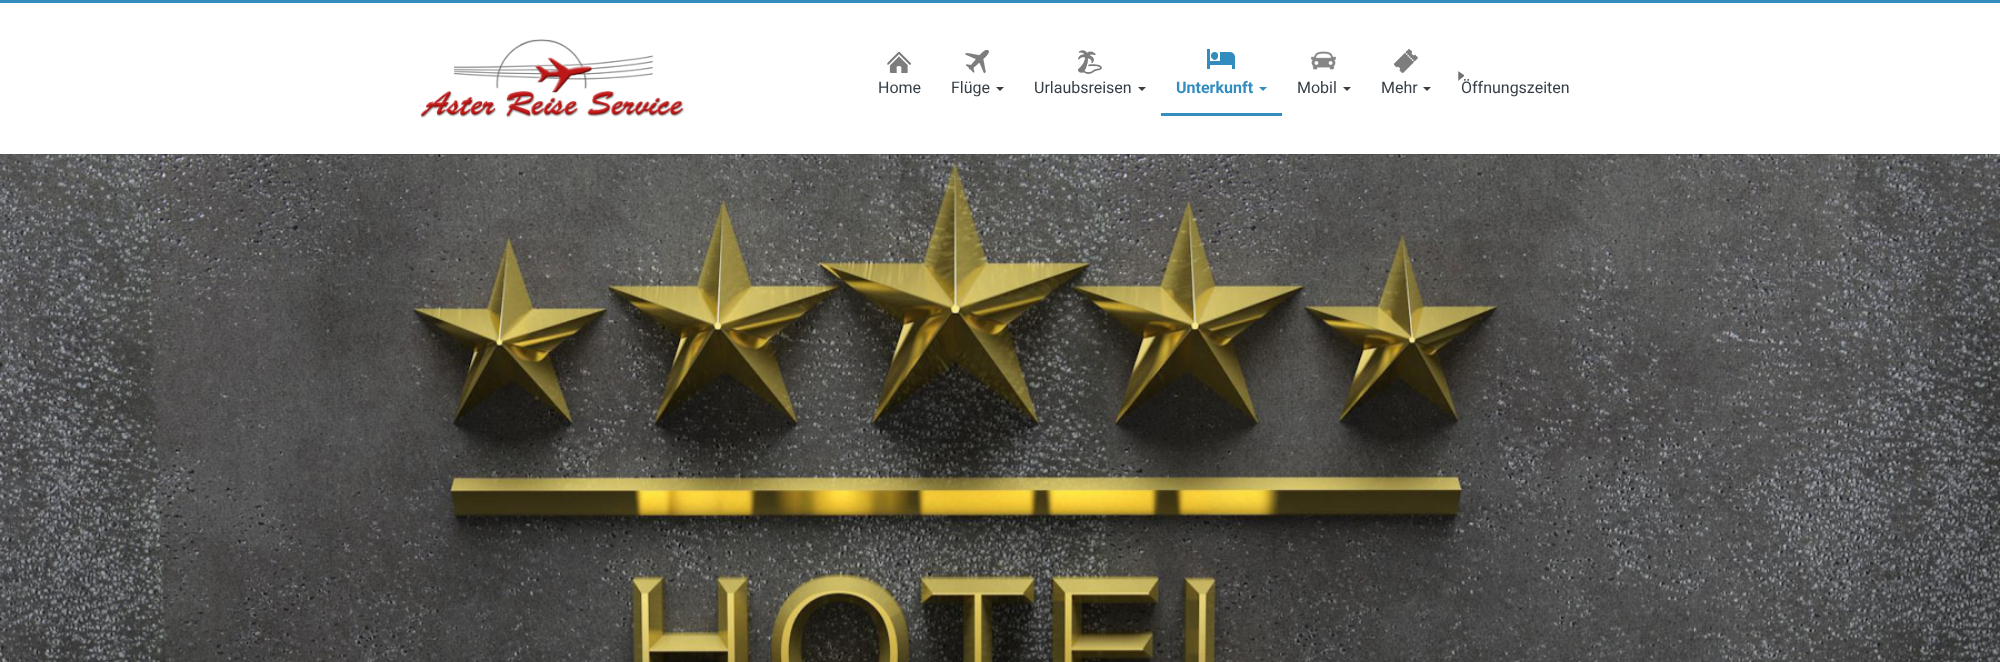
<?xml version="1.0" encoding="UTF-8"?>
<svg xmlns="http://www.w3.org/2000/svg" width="2000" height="662">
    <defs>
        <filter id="blur1" x="-50%" y="-200%" width="200%" height="500%"><feGaussianBlur stdDeviation="0.5"/></filter>
    </defs>
    <rect width="100%" height="100%" fill="#FFFFFF"/>
    <image x="0" y="154" width="2000" height="508" href="img_09.png"/>
    <rect x="0" y="1" width="2000" height="154" fill="#000000" fill-opacity="0.1" filter="url(#blur1)"/>
    <rect x="0" y="3" width="2000" height="151" fill="#FFFFFF"/>
    <rect x="0" y="0" width="2000" height="3" fill="#338DBE"/>
    <image x="420" y="39" width="265" height="79" href="img_01.png"/>
    <image x="887" y="52" width="24" height="21" href="img_02.png"/>
    <text x="878" y="93" font-family="Roboto" font-size="16" fill="#363F48">Home</text>
    <image x="965" y="50" width="24" height="23" href="img_03.png"/>
    <text x="951" y="93" font-family="Roboto" font-size="16" fill="#363F48">Flüge</text>
    <path d="M 996 87 H 1004 L 1000 91 Z" fill="#363F48"/>
    <image x="1078" y="50" width="24" height="24" href="img_04.png"/>
    <text x="1034" y="93" font-family="Roboto" font-size="16" fill="#363F48">Urlaubsreisen</text>
    <path d="M 1138 87 H 1146 L 1142 91 Z" fill="#363F48"/>
    <image x="1207" y="49" width="28" height="20" href="img_05.png"/>
    <rect x="1161" y="113" width="121" height="3" fill="#338DBE"/>
    <text x="1176" y="93" font-family="Roboto" font-size="16" font-weight="700" fill="#338DBE">Unterkunft</text>
    <path d="M 1259 87 H 1267 L 1263 91 Z" fill="#338DBE"/>
    <image x="1311" y="51" width="25" height="19" href="img_06.png"/>
    <text x="1297" y="93" font-family="Roboto" font-size="16" fill="#363F48">Mobil</text>
    <path d="M 1343 87 H 1351 L 1347 91 Z" fill="#363F48"/>
    <image x="1394" y="49" width="24" height="24" href="img_07.png"/>
    <text x="1381" y="93" font-family="Roboto" font-size="16" fill="#363F48">Mehr</text>
    <path d="M 1423 87 H 1431 L 1427 91 Z" fill="#363F48"/>
    <image x="1458" y="71" width="6" height="10" href="img_08.png"/>
    <text x="1461" y="93" font-family="Roboto" font-size="16" fill="#363F48">Öffnungszeiten</text>
</svg>
